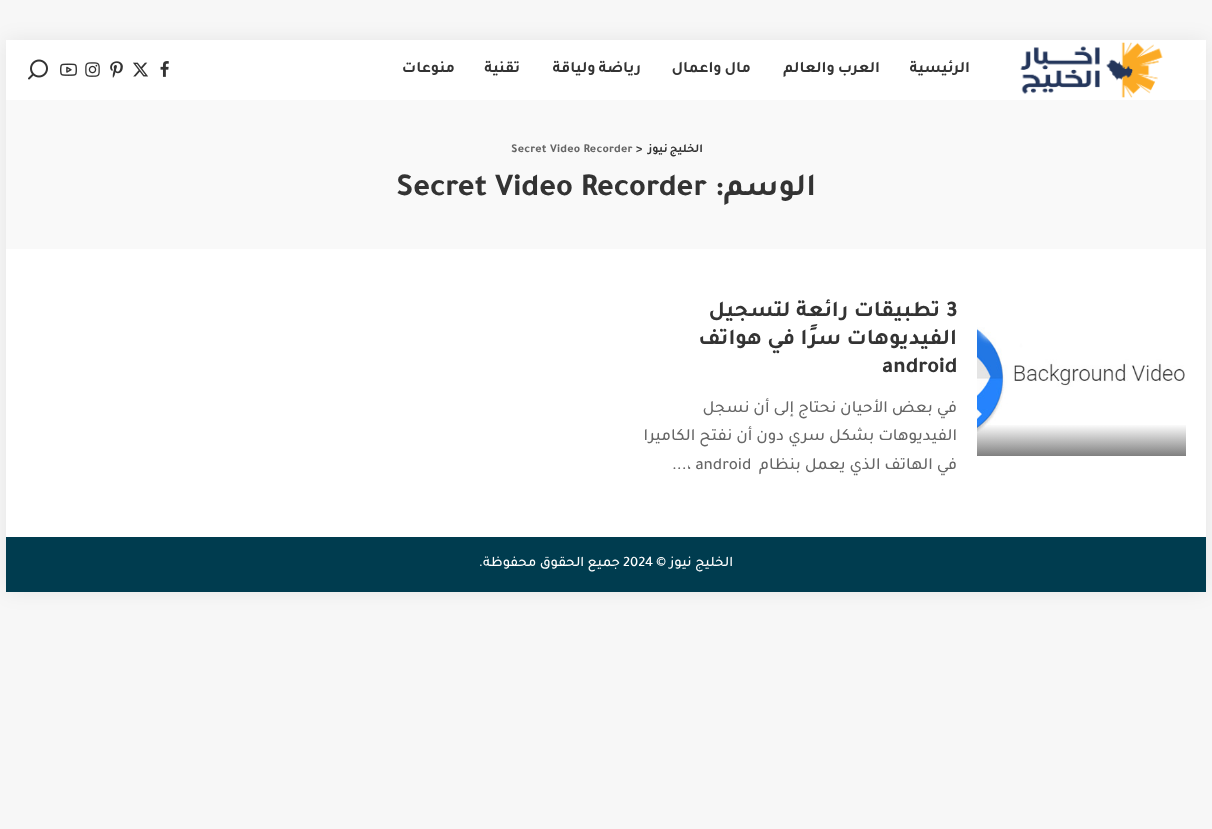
<?xml version="1.0" encoding="UTF-8"?>
<svg xmlns="http://www.w3.org/2000/svg" width="1212" height="829">
    <defs>
        <filter id="blur1" x="-50%" y="-200%" width="200%" height="500%"><feGaussianBlur stdDeviation="10"/></filter>
        <linearGradient id="g1" gradientUnits="userSpaceOnUse" x1="1082" y1="424" x2="1082" y2="456"><stop offset="0" stop-color="#000000" stop-opacity="0"/><stop offset="1" stop-color="#000000" stop-opacity="0.5"/></linearGradient>
    </defs>
    <rect width="100%" height="100%" fill="#F7F7F7"/>
    <rect x="6" y="40" width="1200" height="552" fill="#000000" fill-opacity="0.07" filter="url(#blur1)"/>
    <rect x="6" y="40" width="1200" height="497" fill="#FFFFFF"/>
    <image x="1020" y="42" width="143" height="56" href="img_01.png"/>
    <text x="970" y="72" font-family="Tajawal" font-size="16" font-weight="700" letter-spacing="0.25" direction="rtl" fill="#333333">الرئيسية</text>
    <text x="880" y="72" word-spacing="-1" font-family="Tajawal" font-size="16" font-weight="700" letter-spacing="0.25" direction="rtl" fill="#333333">العرب والعالم</text>
    <text x="751" y="72" word-spacing="-1" font-family="Tajawal" font-size="16" font-weight="700" letter-spacing="0.25" direction="rtl" fill="#333333">مال واعمال</text>
    <text x="641" y="72" word-spacing="-1" font-family="Tajawal" font-size="16" font-weight="700" letter-spacing="0.25" direction="rtl" fill="#333333">رياضة ولياقة</text>
    <text x="520" y="72" font-family="Tajawal" font-size="16" font-weight="700" letter-spacing="0.25" direction="rtl" fill="#333333">تقنية</text>
    <text x="455" y="72" font-family="Tajawal" font-size="16" font-weight="700" letter-spacing="0.25" direction="rtl" fill="#333333">منوعات</text>
    <image x="160" y="61" width="9" height="16" href="img_02.png"/>
    <image x="133" y="62" width="15" height="15" href="img_03.png"/>
    <image x="110" y="61" width="13" height="17" href="img_04.png"/>
    <image x="85" y="62" width="15" height="15" href="img_05.png"/>
    <image x="60" y="63" width="17" height="13" href="img_06.png"/>
    <image x="28" y="59" width="20" height="21" href="img_07.png"/>
    <rect x="6" y="100" width="1200" height="149" fill="#F9F9F9"/>
    <text x="703" y="152" word-spacing="-1" font-family="Tajawal" font-size="12" font-weight="700" letter-spacing="0.25" direction="rtl" fill="#333333">الخليج نيوز</text>
    <text x="636" y="152" font-family="Tajawal" font-size="12" font-weight="700" letter-spacing="0.25" fill="#333333">&gt;</text>
    <text x="511" y="152" font-family="Tajawal" font-size="12" font-weight="700" letter-spacing="0.25" fill="#666666">Secret Video Recorder</text>
    <text x="816" y="195" font-family="Tajawal" font-size="32" font-weight="700" direction="rtl" fill="#333333">الوسم:</text>
    <text x="396" y="195" font-family="Tajawal" font-size="32" font-weight="700" fill="#333333">Secret Video Recorder</text>
    <image x="977" y="327" width="208" height="105" href="img_08.png"/>
    <rect x="977" y="425" width="209" height="31" fill="url(#g1)"/>
    <text x="946" y="316" font-family="Tajawal" font-size="22.5" font-weight="700" fill="#333333">3</text>
    <text x="940" y="316" font-family="Tajawal" font-size="22.5" font-weight="700" direction="rtl" fill="#333333">تطبيقات رائعة لتسجيل</text>
    <text x="957" y="344" font-family="Tajawal" font-size="22.5" font-weight="700" direction="rtl" fill="#333333">الفيديوهات سرًا في هواتف</text>
    <text x="882" y="372" font-family="Tajawal" font-size="22.5" font-weight="700" fill="#333333">android</text>
    <text font-family="Tajawal" font-size="17" font-weight="500" direction="rtl" fill="#666666">
        <tspan x="957" y="412">في بعض الأحيان نحتاج إلى أن نسجل</tspan>
        <tspan x="957" y="440">الفيديوهات بشكل سري دون أن نفتح الكاميرا</tspan>
        <tspan x="957" y="469">في الهاتف الذي يعمل بنظام</tspan>
    </text>
    <text x="687" y="469" font-family="Tajawal" font-size="17" font-weight="500" fill="#666666">، android</text>
    <text x="672" y="469" font-family="Tajawal" font-size="17" font-weight="500" fill="#666666">...</text>
    <rect x="6" y="537" width="1200" height="55" fill="#003C4F"/>
    <text x="733" y="566" font-family="Tajawal" font-size="14.5" font-weight="500" direction="rtl" fill="#FFFFFF">الخليج نيوز ©</text>
    <text x="623" y="566" font-family="Tajawal" font-size="14.5" font-weight="500" fill="#FFFFFF">2024</text>
    <text x="620" y="566" font-family="Tajawal" font-size="14.5" font-weight="500" direction="rtl" fill="#FFFFFF">جميع الحقوق محفوظة.</text>
</svg>
